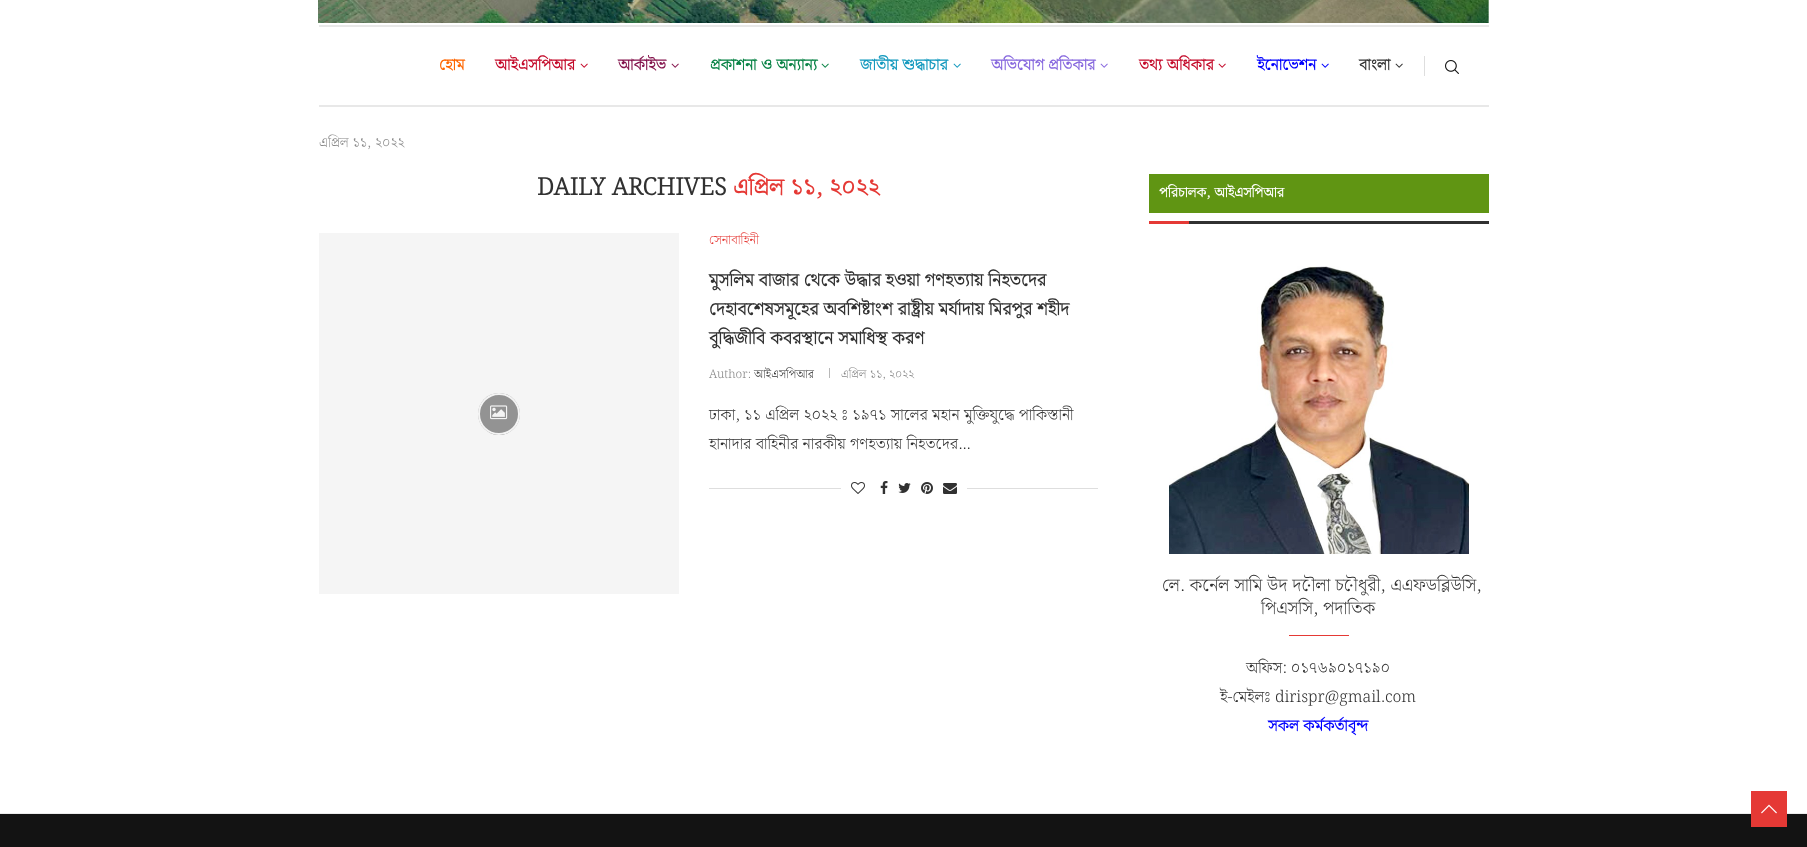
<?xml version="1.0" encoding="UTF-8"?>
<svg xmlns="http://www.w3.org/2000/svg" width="1807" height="847">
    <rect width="100%" height="100%" fill="#FFFFFF"/>
    <image x="318" y="0" width="1171" height="23" href="img_01.png"/>
    <rect x="319" y="25" width="1170" height="2" fill="#E8E8E8"/>
    <rect x="319" y="105" width="1170" height="2" fill="#E8E8E8"/>
    <text x="439" y="70" font-family="Noto Serif Bengali" font-size="16" font-weight="700" fill="#FF6600">হোম</text>
    <text x="495" y="70" font-family="Noto Serif Bengali" font-size="16" font-weight="700" fill="#C40A2A">আইএসপিআর</text>
    <image x="580" y="63" width="8" height="5" href="img_02.png"/>
    <text x="618" y="70" font-family="Noto Serif Bengali" font-size="16" font-weight="700" fill="#84154D">আর্কাইভ</text>
    <image x="671" y="63" width="8" height="5" href="img_03.png"/>
    <text x="710" y="70" font-family="Noto Serif Bengali" font-size="16" font-weight="700" fill="#098346">প্রকাশনা ও অন্যান্য</text>
    <image x="821" y="63" width="8" height="5" href="img_04.png"/>
    <text x="860" y="70" font-family="Noto Serif Bengali" font-size="16" font-weight="700" fill="#1399BE">জাতীয় শুদ্ধাচার</text>
    <image x="953" y="63" width="8" height="5" href="img_05.png"/>
    <text x="991" y="70" font-family="Noto Serif Bengali" font-size="16" font-weight="700" fill="#8768DE">অভিযোগ প্রতিকার</text>
    <image x="1100" y="63" width="8" height="5" href="img_06.png"/>
    <text x="1139" y="70" font-family="Noto Serif Bengali" font-size="16" font-weight="700" fill="#C40A2A">তথ্য অধিকার</text>
    <image x="1218" y="63" width="8" height="5" href="img_02.png"/>
    <text x="1257" y="70" font-family="Noto Serif Bengali" font-size="16" font-weight="700" fill="#0000FF">ইনোভেশন</text>
    <image x="1321" y="63" width="8" height="5" href="img_07.png"/>
    <text x="1359" y="70" font-family="Noto Serif Bengali" font-size="16" font-weight="700" fill="#313131">বাংলা</text>
    <image x="1395" y="63" width="8" height="5" href="img_08.png"/>
    <rect x="1424" y="56" width="1" height="20" fill="#DEDEDE"/>
    <image x="1445" y="60" width="14" height="14" href="img_09.png"/>
    <text x="319" y="147" font-family="Noto Serif Bengali" font-size="14" font-weight="300" fill="#888888">এপ্রিল ১১, ২০২২</text>
    <text x="537" y="195" font-family="Noto Serif Bengali" font-size="24" font-weight="700" fill="#313131">DAILY ARCHIVES</text>
    <text x="733" y="195" font-family="Noto Serif Bengali" font-size="24" font-weight="700" fill="#E53935">এপ্রিল ১১, ২০২২</text>
    <rect x="319" y="233" width="360" height="361" fill="#F5F5F5"/>
    <circle cx="499" cy="414" r="21" fill="#939393"/>
    <circle cx="499" cy="414" r="20" fill="none" stroke="#FFFFFF" stroke-opacity="0.9" stroke-width="2"/>
    <image x="490" y="405" width="18" height="15" href="img_10.png"/>
    <text x="709" y="244" font-family="Noto Serif Bengali" font-size="13" font-weight="300" fill="#E53935">সেনাবাহিনী</text>
    <text font-family="Noto Serif Bengali" font-size="18" font-weight="700" fill="#313131">
        <tspan x="709" y="286">মুসলিম বাজার থেকে উদ্ধার হওয়া গণহত্যায় নিহতদের</tspan>
        <tspan x="709" y="315">দেহাবশেষসমূহের অবশিষ্টাংশ রাষ্ট্রীয় মর্যাদায় মিরপুর শহীদ</tspan>
        <tspan x="709" y="344">বুদ্ধিজীবি কবরস্থানে সমাধিস্থ করণ</tspan>
    </text>
    <text x="709" y="378" font-family="Noto Serif Bengali" font-size="12" font-weight="300" fill="#888888">Author:</text>
    <text x="754" y="378" font-family="Noto Serif Bengali" font-size="12" font-weight="300" fill="#313131">আইএসপিআর</text>
    <rect x="829" y="368" width="1" height="10" fill="#B8B8B8"/>
    <text x="841" y="378" font-family="Noto Serif Bengali" font-size="12" font-weight="300" fill="#888888">এপ্রিল ১১, ২০২২</text>
    <text font-family="Noto Serif Bengali" font-size="16" font-weight="300" fill="#313131">
        <tspan x="709" y="420">ঢাকা, ১১ এপ্রিল ২০২২ ঃ ১৯৭১ সালের মহান মুক্তিযুদ্ধে পাকিস্তানী</tspan>
        <tspan x="709" y="449">হানাদার বাহিনীর নারকীয় গণহত্যায় নিহতদের…</tspan>
    </text>
    <rect x="709" y="488" width="389" height="1" fill="#DEDEDE"/>
    <rect x="841" y="488" width="126" height="1" fill="#FFFFFF"/>
    <image x="851" y="482" width="14" height="12" href="img_11.png"/>
    <image x="880" y="481" width="8" height="13" href="img_12.png"/>
    <image x="898" y="483" width="13" height="10" href="img_13.png"/>
    <image x="921" y="482" width="12" height="12" href="img_14.png"/>
    <image x="943" y="483" width="14" height="11" href="img_15.png"/>
    <rect x="1189" y="221" width="300" height="3" fill="#313131"/>
    <rect x="1149" y="174" width="340" height="39" fill="#609513"/>
    <text x="1159" y="197" font-family="Noto Serif Bengali" font-size="14" font-weight="700" fill="#FFFFFF">পরিচালক, আইএসপিআর</text>
    <rect x="1149" y="221" width="40" height="3" fill="#E53935"/>
    <image x="1169" y="266" width="300" height="288" href="img_16.png"/>
    <text x="1162" y="591" font-family="Noto Serif Bengali" font-size="18" font-weight="300" fill="#313131">লে. কর্নেল সামি উদ দৌলা চৌধুরী, এএফডব্লিউসি,</text>
    <text x="1261" y="614" font-family="Noto Serif Bengali" font-size="18" font-weight="300" fill="#313131">পিএসসি, পদাতিক</text>
    <rect x="1289" y="635" width="60" height="1" fill="#E53935"/>
    <text x="1246" y="673" font-family="Noto Serif Bengali" font-size="16" font-weight="300" fill="#313131">অফিস: ০১৭৬৯০১৭১৯০</text>
    <text x="1220" y="702" font-family="Noto Serif Bengali" font-size="16" font-weight="300" fill="#313131">ই-মেইলঃ dirispr@gmail.com</text>
    <text x="1268" y="731" font-family="Noto Serif Bengali" font-size="16" font-weight="700" fill="#0000FF">সকল কর্মকর্তাবৃন্দ</text>
    <rect x="0" y="814" width="1807" height="33" fill="#131313"/>
    <rect x="0" y="813" width="1807" height="1" fill="#ECECEC"/>
    <rect x="1751" y="791" width="36" height="36" fill="#E53935"/>
    <image x="1761" y="804" width="16" height="10" href="img_17.png"/>
</svg>
